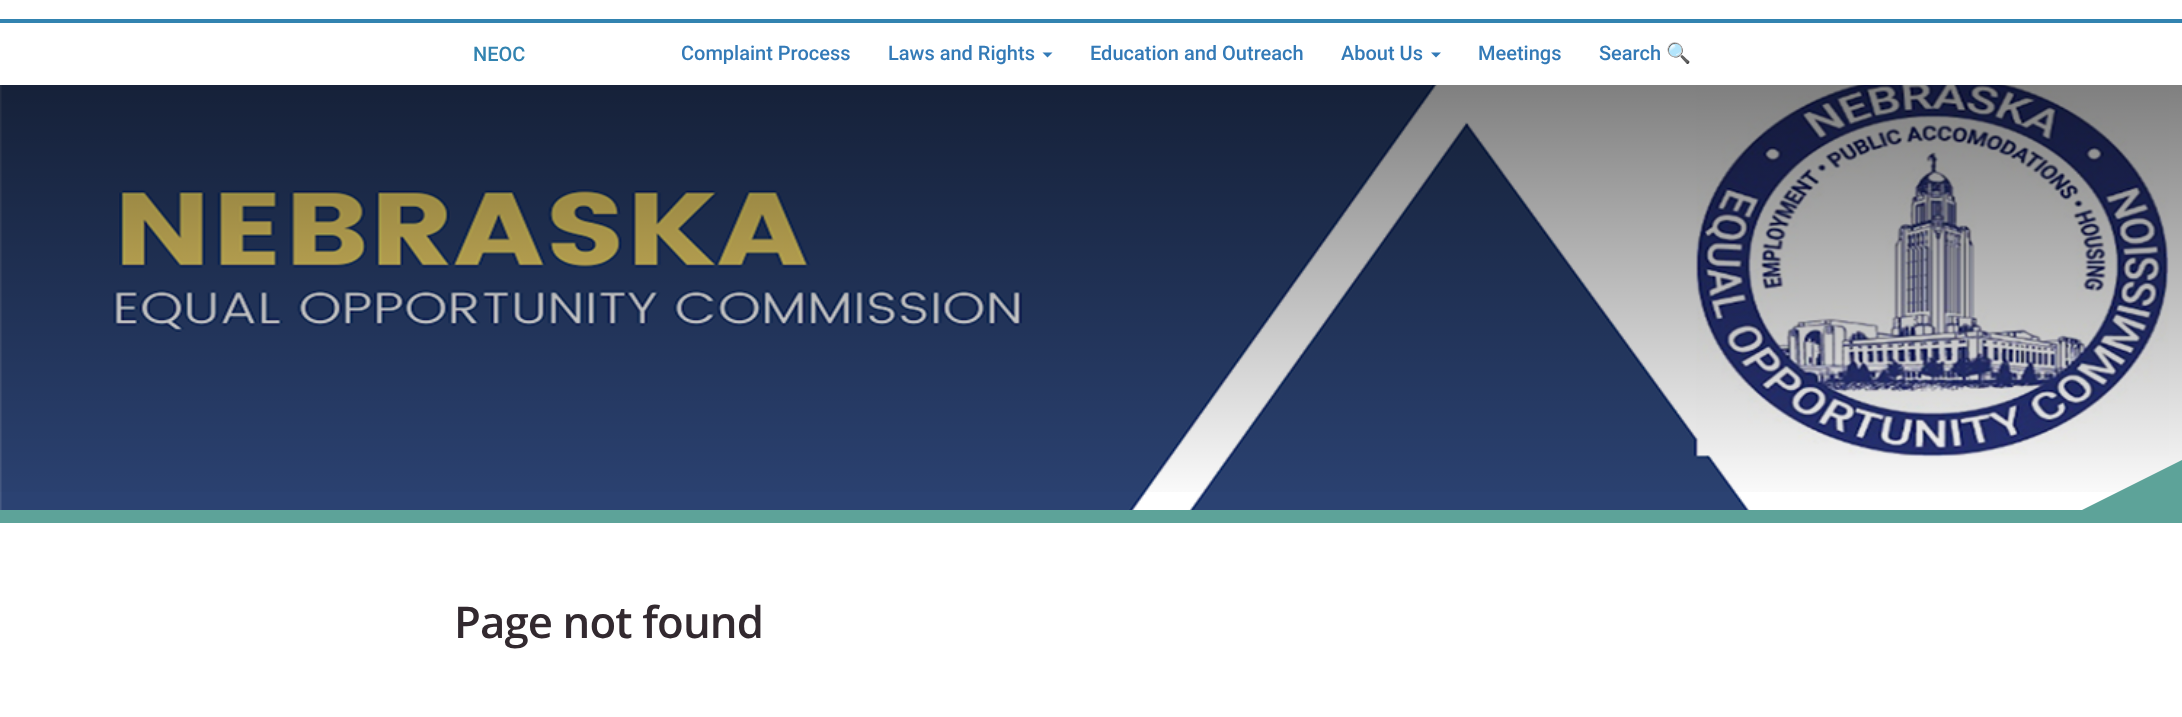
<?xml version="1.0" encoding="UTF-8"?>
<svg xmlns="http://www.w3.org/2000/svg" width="2182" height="717">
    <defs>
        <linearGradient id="g1" gradientUnits="userSpaceOnUse" x1="1091" y1="-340" x2="1091" y2="510"><stop offset="0" stop-color="#000000"/><stop offset="1" stop-color="#000000" stop-opacity="0"/></linearGradient>
    </defs>
    <rect width="100%" height="100%" fill="#FFFFFF"/>
    <rect x="0" y="19" width="2182" height="4" fill="#3283B0"/>
    <text x="473" y="61" font-family="Roboto" font-size="20" font-weight="500" fill="#3283B0">NEOC</text>
    <text x="681" y="60" font-family="Roboto" font-size="20" font-weight="500" fill="#337AB7">Complaint Process</text>
    <text x="888" y="60" font-family="Roboto" font-size="20" font-weight="500" fill="#337AB7">Laws and Rights</text>
    <path d="M 1042.5 52.5 H 1052.5 L 1047.5 57.5 Z" fill="#337AB7"/>
    <text x="1090" y="60" font-family="Roboto" font-size="20" font-weight="500" fill="#337AB7">Education and Outreach</text>
    <text x="1341" y="60" font-family="Roboto" font-size="20" font-weight="500" fill="#337AB7">About Us</text>
    <path d="M 1431 52.5 H 1441 L 1436 57.5 Z" fill="#337AB7"/>
    <text x="1478" y="60" font-family="Roboto" font-size="20" font-weight="500" fill="#337AB7">Meetings</text>
    <text x="1599" y="60" font-family="Roboto" font-size="20" font-weight="500" fill="#337AB7">Search</text>
    <text x="1666" y="60" font-family="Noto Color Emoji" font-size="20" fill="#337AB7">🔍</text>
    <image x="0" y="85" width="2169" height="425" href="img_01.png"/>
    <rect x="0" y="510" width="2182" height="13" fill="#5DA399"/>
    <rect x="0" y="85" width="2182" height="407" fill="url(#g1)"/>
    <path d="M 2182 510 H 2082 L 2182 460 Z" fill="#5DA399"/>
    <text x="454" y="638" font-family="Open Sans" font-size="43.75" font-weight="600" letter-spacing="-0.9" fill="#32292F">Page not found</text>
</svg>
